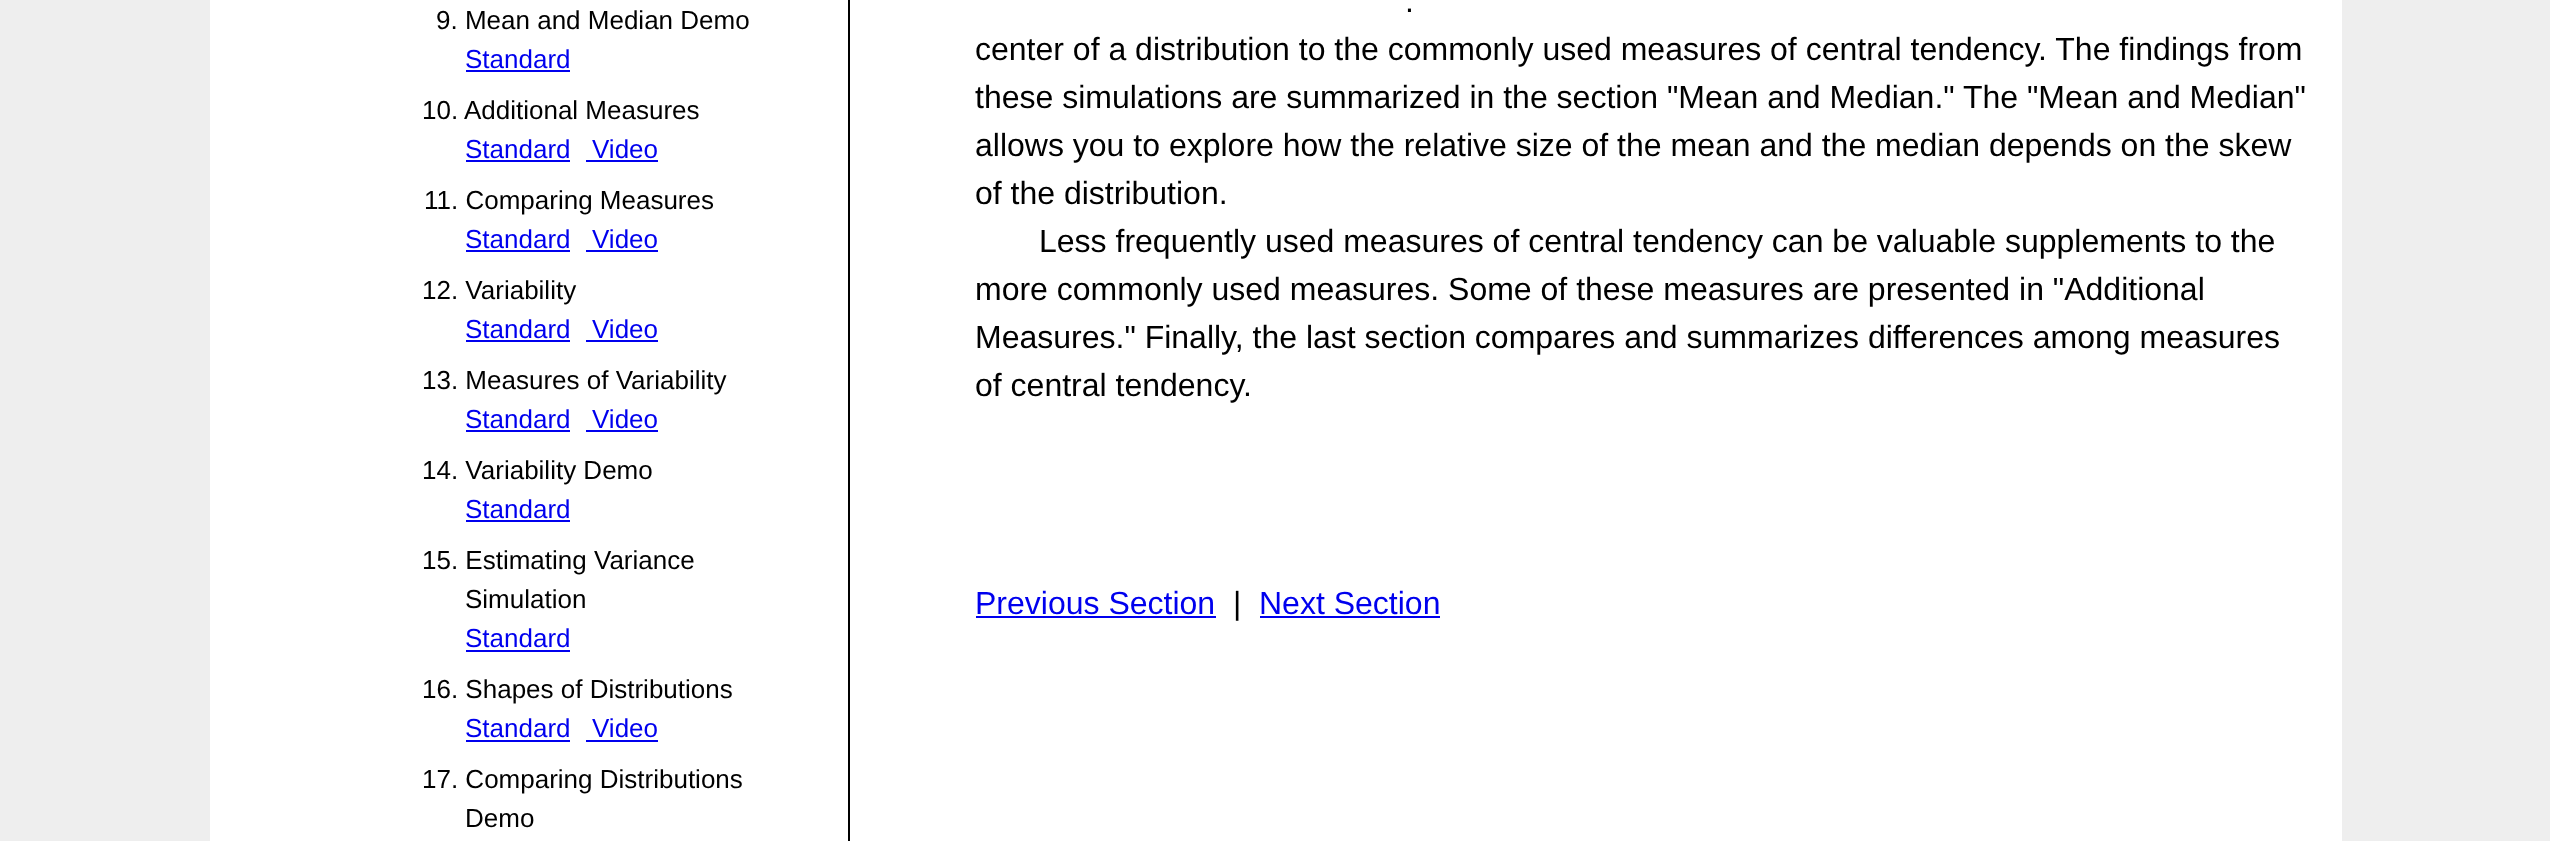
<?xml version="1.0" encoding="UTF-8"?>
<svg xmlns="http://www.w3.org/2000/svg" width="2550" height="841">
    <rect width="100%" height="100%" fill="#EEEEEE"/>
    <rect x="210" y="0" width="2132" height="841" fill="#FFFFFF"/>
    <rect x="848" y="0" width="2" height="841" fill="#000000"/>
    <text x="436" y="29" font-family="Liberation Sans" font-size="26" fill="#000000">9. Mean and Median Demo</text>
    <text x="465" y="68" font-family="Liberation Sans" font-size="26" fill="#0000EE">Standard</text>
    <rect x="466" y="70" width="104" height="2" fill="#0000EE"/>
    <text x="422" y="119" font-family="Liberation Sans" font-size="26" fill="#000000">10. Additional Measures</text>
    <text x="465" y="158" font-family="Liberation Sans" font-size="26" fill="#0000EE">Standard</text>
    <rect x="466" y="160" width="104" height="2" fill="#0000EE"/>
    <text x="592" y="158" font-family="Liberation Sans" font-size="26" fill="#0000EE">Video</text>
    <rect x="586" y="160" width="72" height="2" fill="#0000EE"/>
    <text x="424" y="209" font-family="Liberation Sans" font-size="26" fill="#000000">11. Comparing Measures</text>
    <text x="465" y="248" font-family="Liberation Sans" font-size="26" fill="#0000EE">Standard</text>
    <rect x="466" y="250" width="104" height="2" fill="#0000EE"/>
    <text x="592" y="248" font-family="Liberation Sans" font-size="26" fill="#0000EE">Video</text>
    <rect x="586" y="250" width="72" height="2" fill="#0000EE"/>
    <text x="422" y="299" font-family="Liberation Sans" font-size="26" fill="#000000">12. Variability</text>
    <text x="465" y="338" font-family="Liberation Sans" font-size="26" fill="#0000EE">Standard</text>
    <rect x="466" y="340" width="104" height="2" fill="#0000EE"/>
    <text x="592" y="338" font-family="Liberation Sans" font-size="26" fill="#0000EE">Video</text>
    <rect x="586" y="340" width="72" height="2" fill="#0000EE"/>
    <text x="422" y="389" font-family="Liberation Sans" font-size="26" fill="#000000">13. Measures of Variability</text>
    <text x="465" y="428" font-family="Liberation Sans" font-size="26" fill="#0000EE">Standard</text>
    <rect x="466" y="430" width="104" height="2" fill="#0000EE"/>
    <text x="592" y="428" font-family="Liberation Sans" font-size="26" fill="#0000EE">Video</text>
    <rect x="586" y="430" width="72" height="2" fill="#0000EE"/>
    <text x="422" y="479" font-family="Liberation Sans" font-size="26" fill="#000000">14. Variability Demo</text>
    <text x="465" y="518" font-family="Liberation Sans" font-size="26" fill="#0000EE">Standard</text>
    <rect x="466" y="520" width="104" height="2" fill="#0000EE"/>
    <text x="422" y="569" font-family="Liberation Sans" font-size="26" fill="#000000">15. Estimating Variance</text>
    <text x="465" y="608" font-family="Liberation Sans" font-size="26" fill="#000000">Simulation</text>
    <text x="465" y="647" font-family="Liberation Sans" font-size="26" fill="#0000EE">Standard</text>
    <rect x="466" y="650" width="104" height="2" fill="#0000EE"/>
    <text x="422" y="698" font-family="Liberation Sans" font-size="26" fill="#000000">16. Shapes of Distributions</text>
    <text x="465" y="737" font-family="Liberation Sans" font-size="26" fill="#0000EE">Standard</text>
    <rect x="466" y="740" width="104" height="2" fill="#0000EE"/>
    <text x="592" y="737" font-family="Liberation Sans" font-size="26" fill="#0000EE">Video</text>
    <rect x="586" y="740" width="72" height="2" fill="#0000EE"/>
    <text x="422" y="788" font-family="Liberation Sans" font-size="26" fill="#000000">17. Comparing Distributions</text>
    <text x="465" y="827" font-family="Liberation Sans" font-size="26" fill="#000000">Demo</text>
    <text x="1405" y="12" font-family="Liberation Sans" font-size="32" fill="#000000">.</text>
    <text font-family="Liberation Sans" font-size="32" fill="#000000">
        <tspan x="975" y="60">center of a distribution to the commonly used measures of central tendency. The findings from</tspan>
        <tspan x="975" y="108">these simulations are summarized in the section "Mean and Median." The "Mean and Median"</tspan>
        <tspan x="975" y="156">allows you to explore how the relative size of the mean and the median depends on the skew</tspan>
        <tspan x="975" y="204">of the distribution.</tspan>
    </text>
    <text x="1039" y="252" font-family="Liberation Sans" font-size="32" fill="#000000">Less frequently used measures of central tendency can be valuable supplements to the</text>
    <text font-family="Liberation Sans" font-size="32" fill="#000000">
        <tspan x="975" y="300">more commonly used measures. Some of these measures are presented in "Additional</tspan>
        <tspan x="975" y="348">Measures." Finally, the last section compares and summarizes differences among measures</tspan>
        <tspan x="975" y="396">of central tendency.</tspan>
    </text>
    <text x="975" y="614" font-family="Liberation Sans" font-size="32" fill="#0000EE">Previous Section</text>
    <rect x="976" y="616" width="240" height="2" fill="#0000EE"/>
    <text x="1233" y="614" font-family="Liberation Sans" font-size="32" fill="#000000">|</text>
    <text x="1259" y="614" font-family="Liberation Sans" font-size="32" fill="#0000EE">Next Section</text>
    <rect x="1260" y="616" width="180" height="2" fill="#0000EE"/>
</svg>
